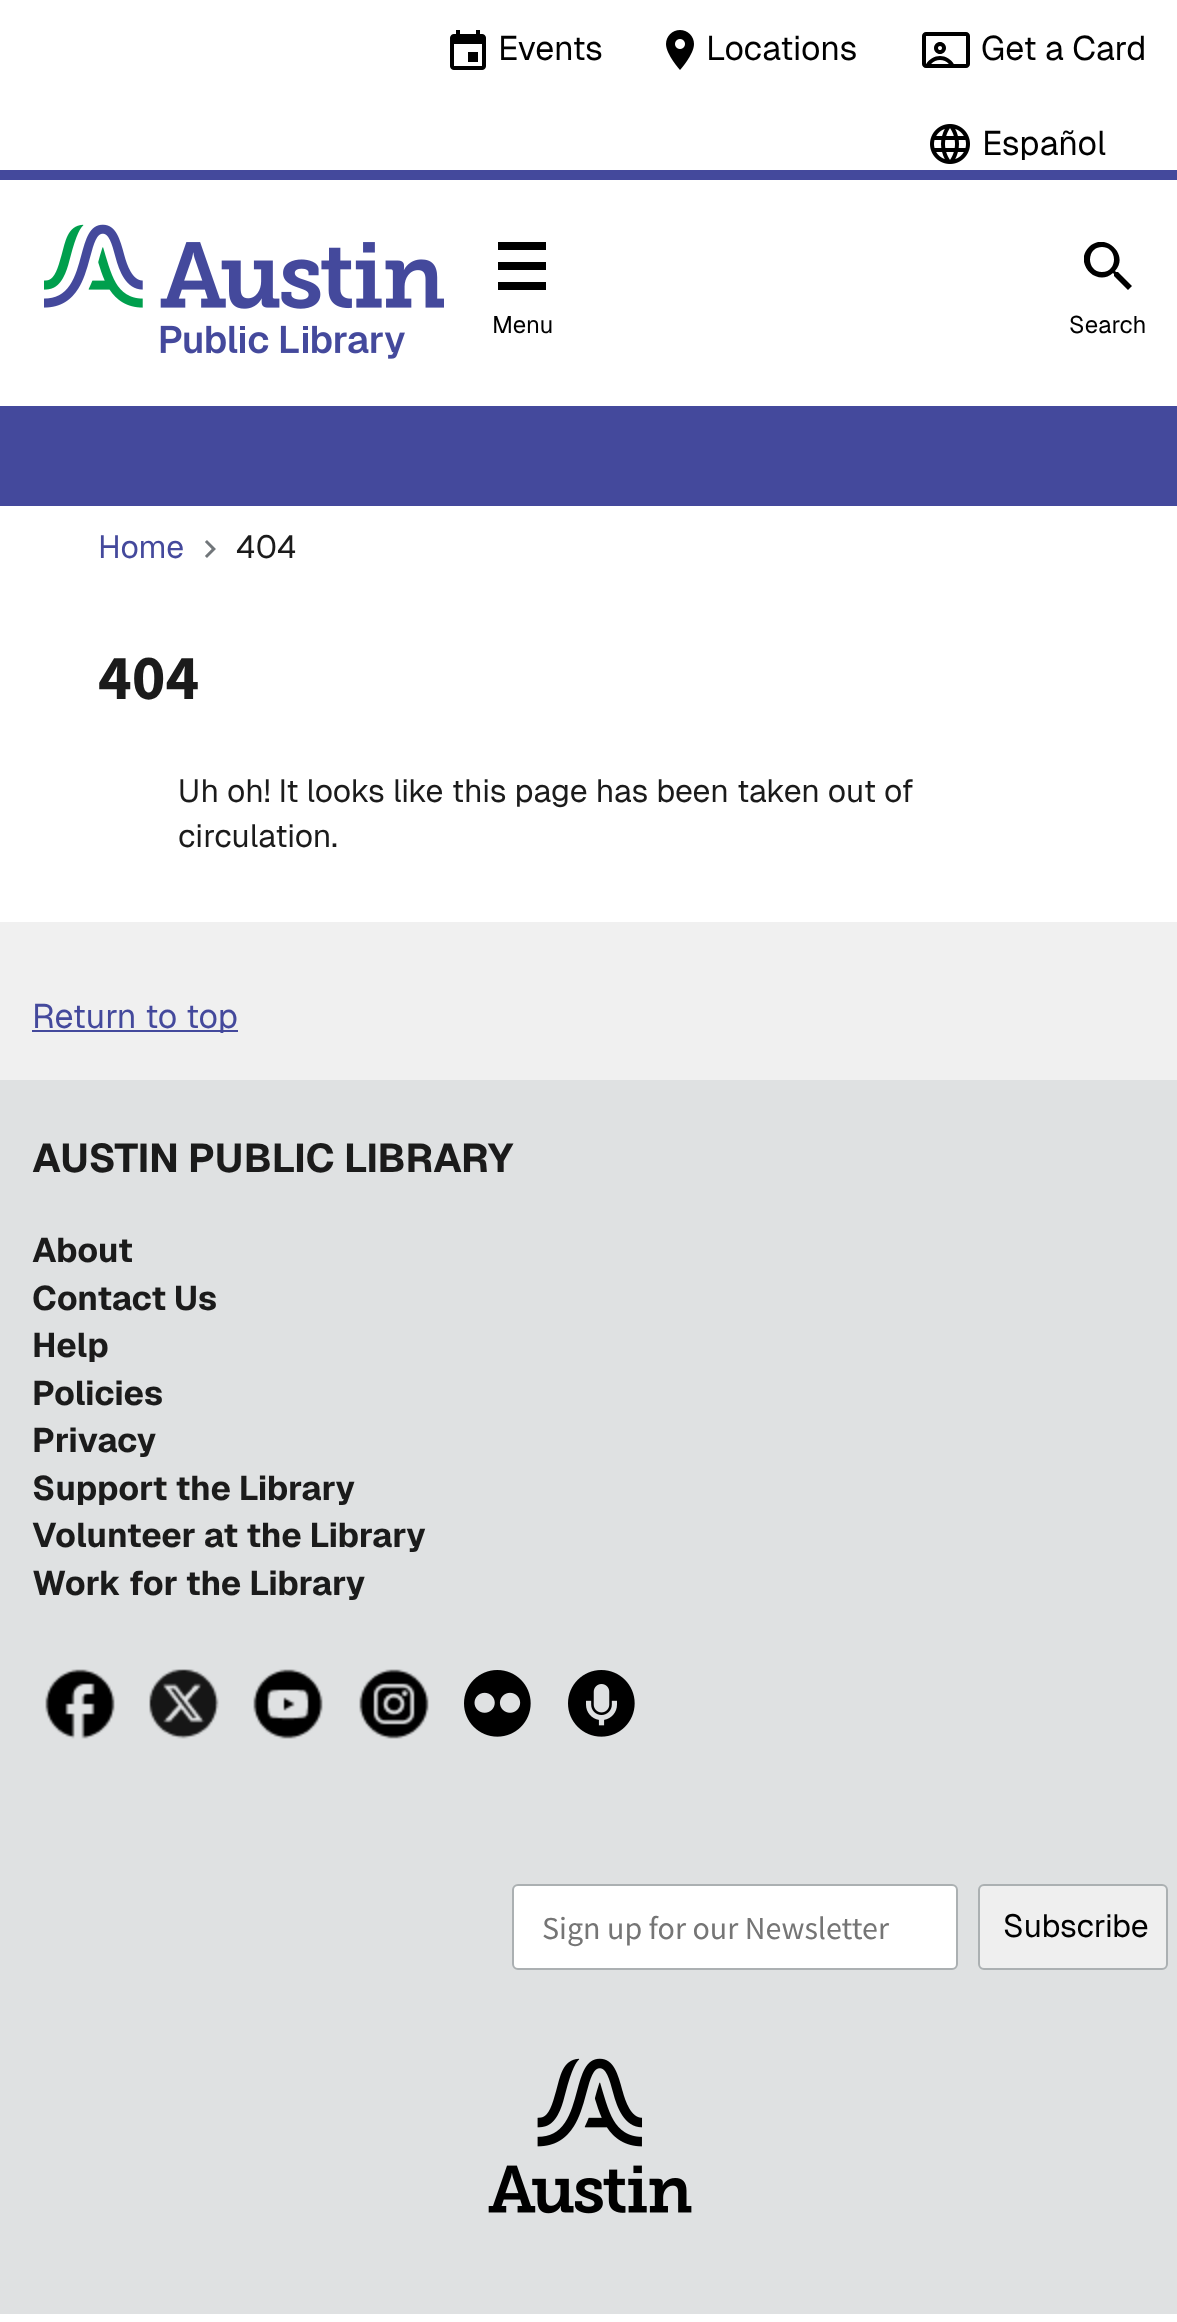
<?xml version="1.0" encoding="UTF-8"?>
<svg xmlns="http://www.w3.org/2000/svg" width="1177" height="2322">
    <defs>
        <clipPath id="clip1"><rect x="1084" y="242" width="48" height="48"/></clipPath>
    </defs>
    <rect width="100%" height="100%" fill="#FFFFFF"/>
    <rect x="0" y="170" width="1177" height="10" fill="#44499C"/>
    <image x="450" y="30" width="36" height="40" href="img_01.png"/>
    <text x="498" y="60" font-family="Geist" font-size="34" fill="#000000">Events</text>
    <image x="666" y="30" width="28" height="40" href="img_02.png"/>
    <text x="706" y="60" font-family="Geist" font-size="34" fill="#000000">Locations</text>
    <image x="922" y="32" width="48" height="36" href="img_03.png"/>
    <text x="981" y="60" font-family="Geist" font-size="34" fill="#000000">Get a Card</text>
    <image x="930" y="124" width="40" height="40" href="img_04.png"/>
    <text x="982" y="155" font-family="Geist" font-size="34" fill="#000000">Español</text>
    <image x="44" y="224" width="400" height="135" href="img_05.png"/>
    <rect x="498" y="242" width="48" height="8" fill="#000000"/>
    <rect x="498" y="262" width="48" height="8" fill="#000000"/>
    <rect x="498" y="282" width="48" height="8" fill="#000000"/>
    <text x="492" y="333" font-family="Geist" font-size="24" fill="#000000">Menu</text>
    <g clip-path="url(#clip1)">
        <path d="M 1118 272 H 1116 L 1115 271 C 1130 255 1105 231 1089 247 C 1073 263 1097 288 1113 273 L 1114 274 V 276 L 1128 290 L 1132 286 Z M 1102 272 C 1086 272 1086 247 1102 247 C 1118 247 1118 272 1102 272 Z" fill="#000000" fill-rule="evenodd"/>
    </g>
    <text x="1069" y="333" font-family="Geist" font-size="24" fill="#000000">Search</text>
    <rect x="0" y="922" width="1177" height="158" fill="#F0F0F0"/>
    <rect x="0" y="406" width="1177" height="100" fill="#44499C"/>
    <text x="98" y="558" font-family="Geist" font-size="32" fill="#44499C">Home</text>
    <image x="205" y="540" width="11" height="18" href="img_06.png"/>
    <text x="236" y="558" font-family="Geist" font-size="32" fill="#1B1B1B">404</text>
    <text x="98" y="699" font-family="Source Sans Pro" font-size="64" font-weight="700" fill="#1B1B1B">404</text>
    <text font-family="Geist" font-size="32" fill="#1B1B1B">
        <tspan x="178" y="802">Uh oh! It looks like this page has been taken out of</tspan>
        <tspan x="178" y="847">circulation.</tspan>
    </text>
    <rect x="32" y="1030" width="206" height="2" fill="#44499C"/>
    <text x="32" y="1028" font-family="Geist" font-size="34" fill="#44499C">Return to top</text>
    <rect x="0" y="1080" width="1177" height="1234" fill="#DFE1E2"/>
    <text x="32" y="1172" font-family="Geist" font-size="40" font-weight="700" fill="#1B1B1B">AUSTIN PUBLIC LIBRARY</text>
    <text font-family="Geist" font-size="34" font-weight="700" fill="#1B1B1B">
        <tspan x="32" y="1262">About</tspan>
        <tspan x="32" y="1310">Contact Us</tspan>
        <tspan x="32" y="1357">Help</tspan>
        <tspan x="32" y="1405">Policies</tspan>
        <tspan x="32" y="1452">Privacy</tspan>
        <tspan x="32" y="1500">Support the Library</tspan>
        <tspan x="32" y="1547">Volunteer at the Library</tspan>
        <tspan x="32" y="1595">Work for the Library</tspan>
    </text>
    <image x="45" y="1669" width="70" height="70" href="img_07.png"/>
    <image x="149" y="1669" width="70" height="70" href="img_08.png"/>
    <image x="253" y="1669" width="70" height="70" href="img_09.png"/>
    <image x="359" y="1669" width="70" height="70" href="img_10.png"/>
    <image x="464" y="1670" width="67" height="67" href="img_11.png"/>
    <image x="568" y="1670" width="67" height="67" href="img_12.png"/>
    <rect x="513" y="1885" width="444" height="84" rx="5" fill="#FFFFFF" stroke="#ABB0B2" stroke-width="2"/>
    <text x="542" y="1939" font-family="Source Sans Pro" font-size="32" fill="#757575">Sign up for our Newsletter</text>
    <rect x="979" y="1885" width="188" height="84" rx="5" fill="#EFEFEF" stroke="#ABB0B2" stroke-width="2"/>
    <text x="1003" y="1937" font-family="Geist" font-size="32" fill="#000000">Subscribe</text>
    <image x="488" y="2058" width="204" height="156" href="img_13.png"/>
</svg>
